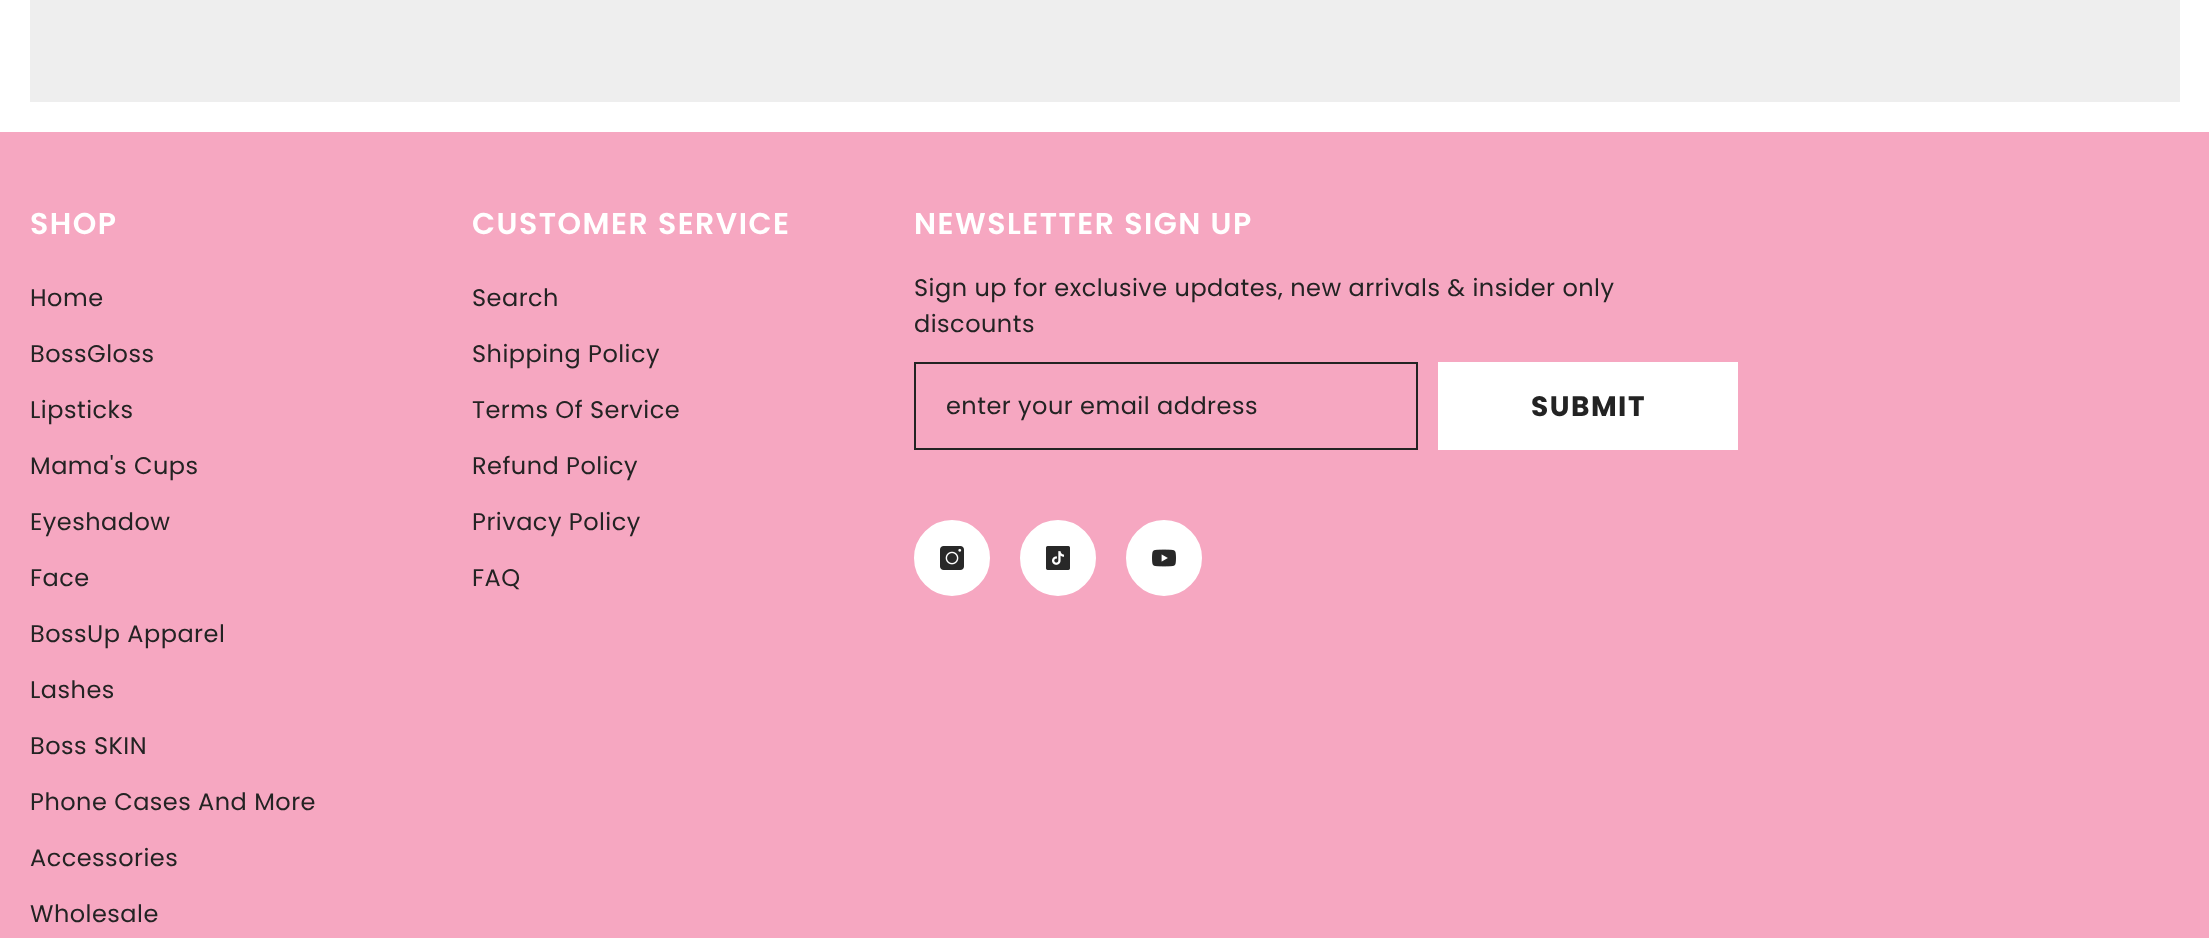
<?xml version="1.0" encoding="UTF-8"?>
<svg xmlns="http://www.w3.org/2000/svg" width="2209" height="938">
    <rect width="100%" height="100%" fill="#FFFFFF"/>
    <rect x="30" y="0" width="2150" height="102" fill="#EEEEEE"/>
    <rect x="0" y="132" width="2209" height="806" fill="#F6A7C1"/>
    <text x="30" y="234" font-family="Poppins" font-size="30" font-weight="600" letter-spacing="1.5" fill="#FFFFFF">SHOP</text>
    <text x="30" y="306" font-family="Poppins" font-size="24" letter-spacing="0.48" fill="#232323">Home</text>
    <text x="30" y="362" font-family="Poppins" font-size="24" letter-spacing="0.48" fill="#232323">BossGloss</text>
    <text x="30" y="418" font-family="Poppins" font-size="24" letter-spacing="0.48" fill="#232323">Lipsticks</text>
    <text x="30" y="474" font-family="Poppins" font-size="24" letter-spacing="0.48" fill="#232323">Mama's Cups</text>
    <text x="30" y="530" font-family="Poppins" font-size="24" letter-spacing="0.48" fill="#232323">Eyeshadow</text>
    <text x="30" y="586" font-family="Poppins" font-size="24" letter-spacing="0.48" fill="#232323">Face</text>
    <text x="30" y="642" font-family="Poppins" font-size="24" letter-spacing="0.48" fill="#232323">BossUp Apparel</text>
    <text x="30" y="698" font-family="Poppins" font-size="24" letter-spacing="0.48" fill="#232323">Lashes</text>
    <text x="30" y="754" font-family="Poppins" font-size="24" letter-spacing="0.48" fill="#232323">Boss SKIN</text>
    <text x="30" y="810" font-family="Poppins" font-size="24" letter-spacing="0.48" fill="#232323">Phone Cases And More</text>
    <text x="30" y="866" font-family="Poppins" font-size="24" letter-spacing="0.48" fill="#232323">Accessories</text>
    <text x="30" y="922" font-family="Poppins" font-size="24" letter-spacing="0.48" fill="#232323">Wholesale</text>
    <text x="472" y="234" font-family="Poppins" font-size="30" font-weight="600" letter-spacing="1.5" fill="#FFFFFF">CUSTOMER SERVICE</text>
    <text x="472" y="306" font-family="Poppins" font-size="24" letter-spacing="0.48" fill="#232323">Search</text>
    <text x="472" y="362" font-family="Poppins" font-size="24" letter-spacing="0.48" fill="#232323">Shipping Policy</text>
    <text x="472" y="418" font-family="Poppins" font-size="24" letter-spacing="0.48" fill="#232323">Terms Of Service</text>
    <text x="472" y="474" font-family="Poppins" font-size="24" letter-spacing="0.48" fill="#232323">Refund Policy</text>
    <text x="472" y="530" font-family="Poppins" font-size="24" letter-spacing="0.48" fill="#232323">Privacy Policy</text>
    <text x="472" y="586" font-family="Poppins" font-size="24" letter-spacing="0.48" fill="#232323">FAQ</text>
    <text x="914" y="234" font-family="Poppins" font-size="30" font-weight="600" letter-spacing="1.5" fill="#FFFFFF">NEWSLETTER SIGN UP</text>
    <text font-family="Poppins" font-size="24" letter-spacing="0.48" fill="#232323">
        <tspan x="914" y="296">Sign up for exclusive updates, new arrivals &amp; insider only</tspan>
        <tspan x="914" y="332">discounts</tspan>
    </text>
    <rect x="915" y="363" width="502" height="86" fill="none" stroke="#232323" stroke-width="2"/>
    <text x="946" y="414" font-family="Poppins" font-size="24" letter-spacing="0.48" fill="#232323">enter your email address</text>
    <rect x="1438" y="362" width="300" height="88" fill="#FFFFFF"/>
    <text x="1531" y="416" font-family="Poppins" font-size="28" font-weight="700" letter-spacing="1.5" fill="#232323">SUBMIT</text>
    <circle cx="952" cy="558" r="37" fill="#FFFFFF" stroke="#FFFFFF" stroke-width="2"/>
    <image x="940" y="546" width="24" height="24" href="img_01.png"/>
    <circle cx="1058" cy="558" r="37" fill="#FFFFFF" stroke="#FFFFFF" stroke-width="2"/>
    <image x="1046" y="546" width="24" height="24" href="img_02.png"/>
    <circle cx="1164" cy="558" r="37" fill="#FFFFFF" stroke="#FFFFFF" stroke-width="2"/>
    <image x="1152" y="549" width="24" height="18" href="img_03.png"/>
</svg>
